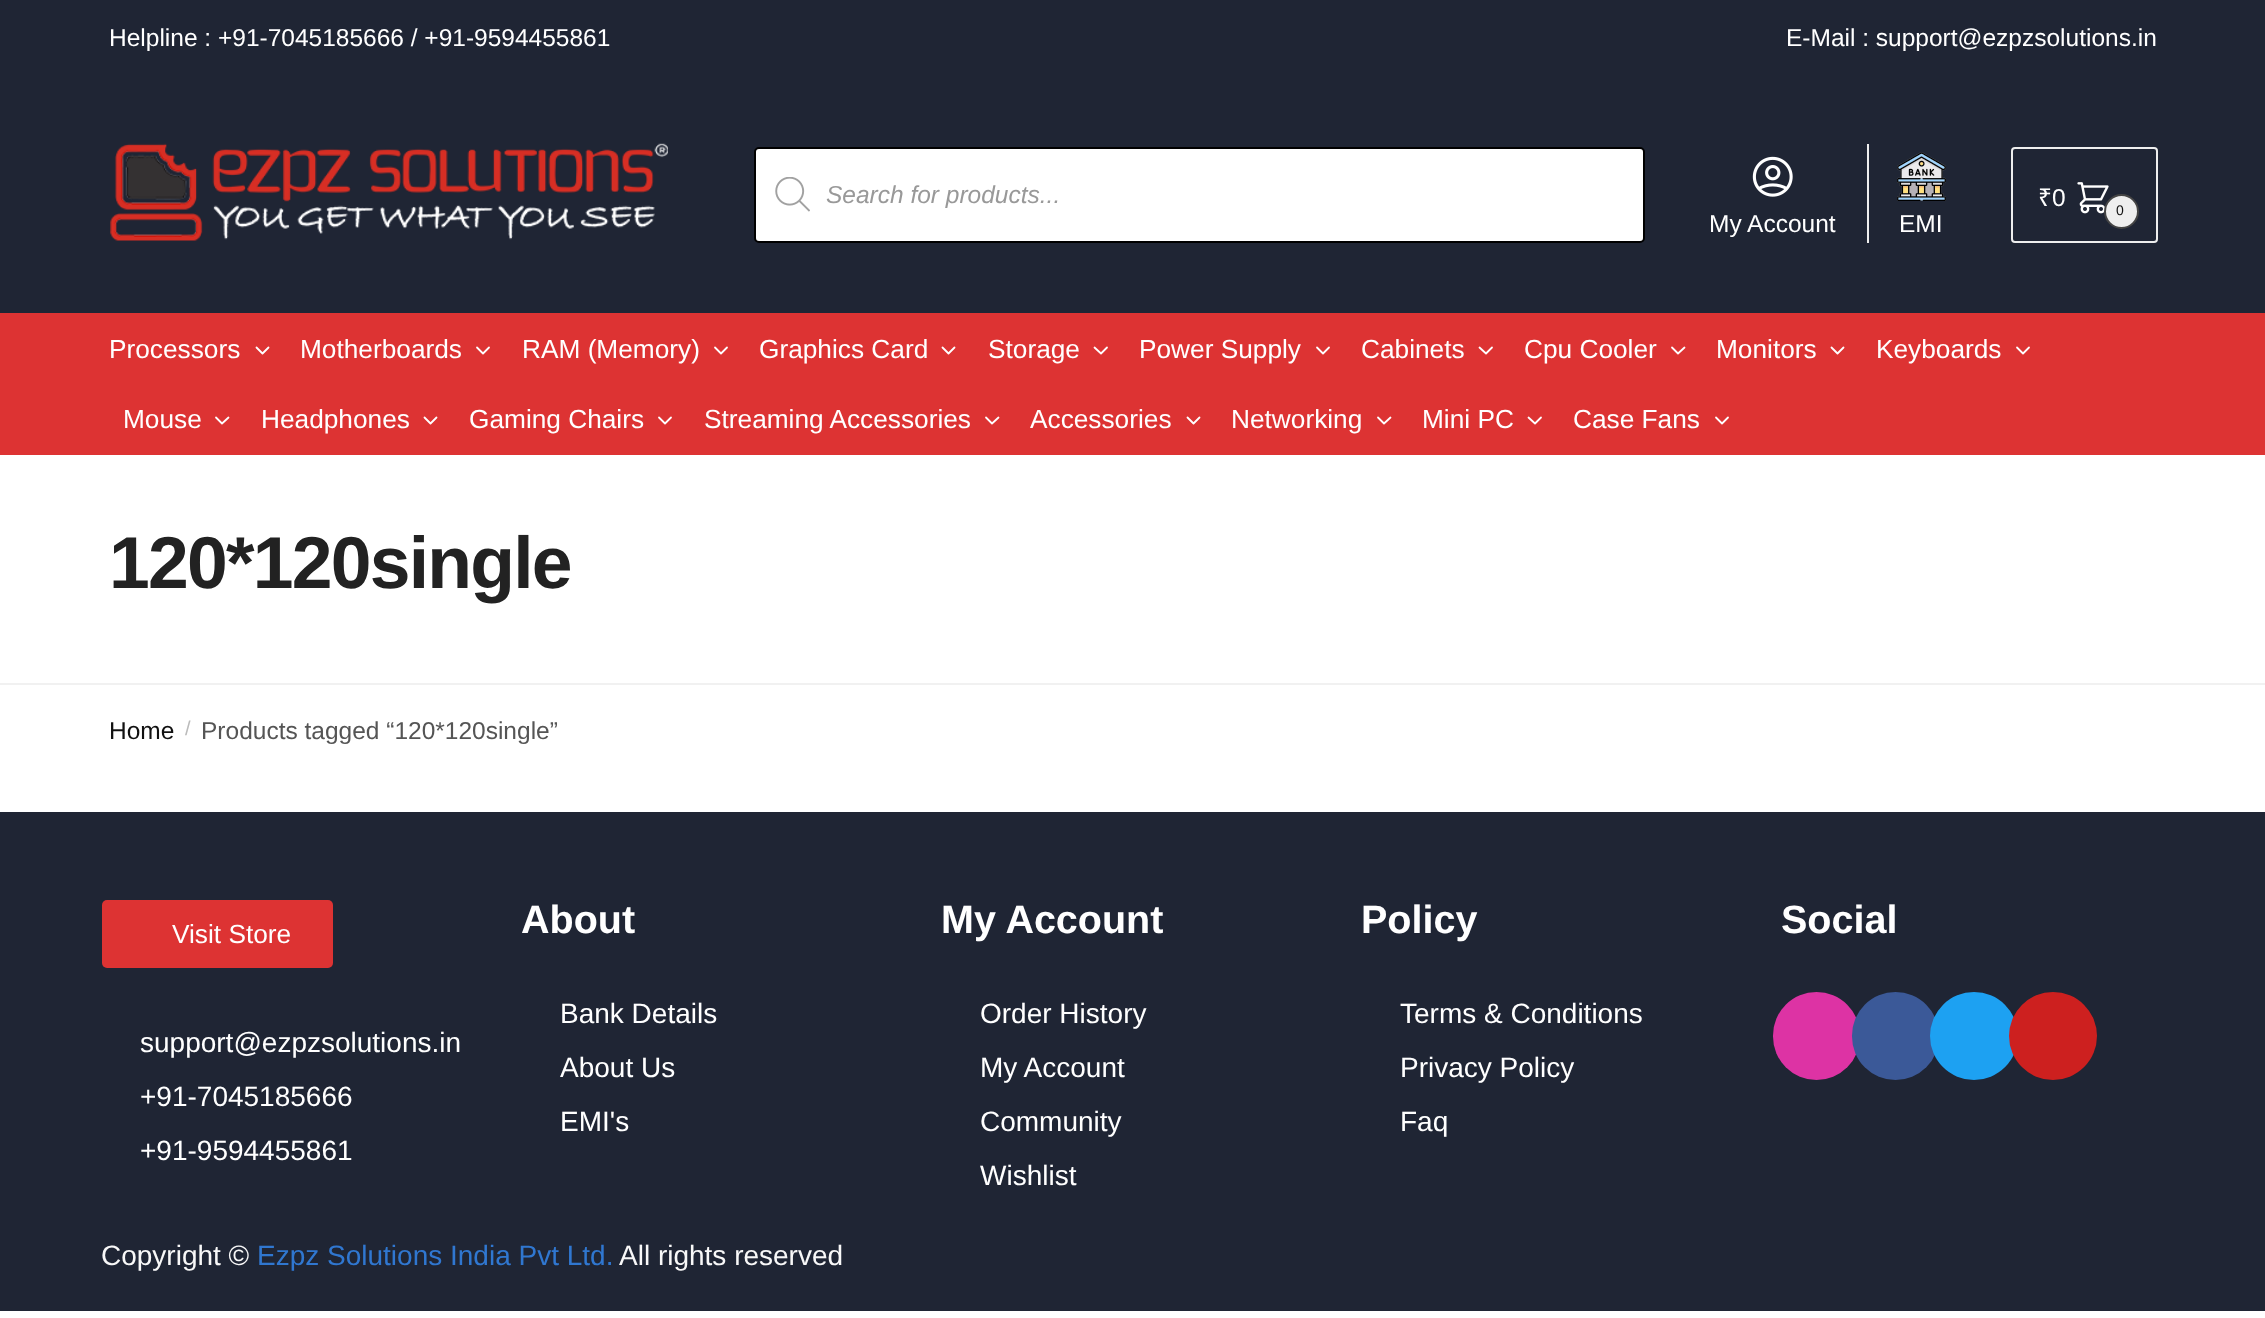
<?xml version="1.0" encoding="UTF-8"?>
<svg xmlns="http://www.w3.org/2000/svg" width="2265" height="1318">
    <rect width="100%" height="100%" fill="#FFFFFF"/>
    <rect x="0" y="0" width="2265" height="313" fill="#1F2534"/>
    <text x="109" y="46" font-family="Liberation Sans" font-size="24.5" fill="#FFFFFF">Helpline : +91-7045185666 / +91-9594455861</text>
    <text x="1786" y="46" font-family="Liberation Sans" font-size="24.5" fill="#FFFFFF">E-Mail : support@ezpzsolutions.in</text>
    <image x="110" y="143" width="558" height="98" href="img_01.png"/>
    <rect x="755" y="148" width="889" height="94" rx="4" fill="#FFFFFF" stroke="#000000" stroke-width="2"/>
    <image x="775" y="177" width="35" height="35" href="img_02.png"/>
    <text x="826" y="203" font-family="Liberation Sans" font-size="24.5" font-style="italic" fill="#999999">Search for products...</text>
    <rect x="2012" y="148" width="145" height="94" rx="3" fill="none" stroke="#EEEEEE" stroke-width="2"/>
    <text x="2038" y="206" font-family="Noto Sans" font-size="24.5" fill="#FFFFFF">₹</text>
    <text x="2052" y="206" font-family="Liberation Sans" font-size="24.5" fill="#FFFFFF">0</text>
    <image x="2077" y="182" width="32" height="32" href="img_03.png"/>
    <circle cx="2121.5" cy="211.5" r="16.5" fill="#EEEEEE" stroke="#444444" stroke-width="2"/>
    <text x="2116" y="215" font-family="Liberation Sans" font-size="14" fill="#111111">0</text>
    <image x="1752" y="156" width="41" height="41" href="img_04.png"/>
    <text x="1709" y="232" font-family="Liberation Sans" font-size="24.5" fill="#FFFFFF">My Account</text>
    <rect x="1867" y="144" width="2" height="99" fill="#EEEEEE"/>
    <image x="1897" y="152" width="49" height="49" href="img_05.png"/>
    <text x="1899" y="232" font-family="Liberation Sans" font-size="24.5" fill="#FFFFFF">EMI</text>
    <rect x="0" y="313" width="2265" height="142" fill="#DD3333"/>
    <text x="109" y="358" font-family="Liberation Sans" font-size="26.25" fill="#FFFFFF">Processors</text>
    <path d="M 268.5 347.5 L 262.5 353.5 L 256.5 347.5" fill="none" stroke="#FFFFFF" stroke-width="1.8" stroke-linecap="round" stroke-linejoin="round"/>
    <text x="300" y="358" font-family="Liberation Sans" font-size="26.25" fill="#FFFFFF">Motherboards</text>
    <path d="M 489 347.5 L 483 353.5 L 477 347.5" fill="none" stroke="#FFFFFF" stroke-width="1.8" stroke-linecap="round" stroke-linejoin="round"/>
    <text x="522" y="358" font-family="Liberation Sans" font-size="26.25" fill="#FFFFFF">RAM (Memory)</text>
    <path d="M 727 347.5 L 721 353.5 L 715 347.5" fill="none" stroke="#FFFFFF" stroke-width="1.8" stroke-linecap="round" stroke-linejoin="round"/>
    <text x="759" y="358" font-family="Liberation Sans" font-size="26.25" fill="#FFFFFF">Graphics Card</text>
    <path d="M 954.5 347.5 L 948.5 353.5 L 942.5 347.5" fill="none" stroke="#FFFFFF" stroke-width="1.8" stroke-linecap="round" stroke-linejoin="round"/>
    <text x="988" y="358" font-family="Liberation Sans" font-size="26.25" fill="#FFFFFF">Storage</text>
    <path d="M 1107 347.5 L 1101 353.5 L 1094.5 347.5" fill="none" stroke="#FFFFFF" stroke-width="1.8" stroke-linecap="round" stroke-linejoin="round"/>
    <text x="1139" y="358" font-family="Liberation Sans" font-size="26.25" fill="#FFFFFF">Power Supply</text>
    <path d="M 1329 347.5 L 1323 353.5 L 1317 347.5" fill="none" stroke="#FFFFFF" stroke-width="1.8" stroke-linecap="round" stroke-linejoin="round"/>
    <text x="1361" y="358" font-family="Liberation Sans" font-size="26.25" fill="#FFFFFF">Cabinets</text>
    <path d="M 1492 347.5 L 1486 353.5 L 1479.5 347.5" fill="none" stroke="#FFFFFF" stroke-width="1.8" stroke-linecap="round" stroke-linejoin="round"/>
    <text x="1524" y="358" font-family="Liberation Sans" font-size="26.25" fill="#FFFFFF">Cpu Cooler</text>
    <path d="M 1684.5 347.5 L 1678 353.5 L 1672 347.5" fill="none" stroke="#FFFFFF" stroke-width="1.8" stroke-linecap="round" stroke-linejoin="round"/>
    <text x="1716" y="358" font-family="Liberation Sans" font-size="26.25" fill="#FFFFFF">Monitors</text>
    <path d="M 1843.5 347.5 L 1837.5 353.5 L 1831.5 347.5" fill="none" stroke="#FFFFFF" stroke-width="1.8" stroke-linecap="round" stroke-linejoin="round"/>
    <text x="1876" y="358" font-family="Liberation Sans" font-size="26.25" fill="#FFFFFF">Keyboards</text>
    <path d="M 2029 347.5 L 2023 353.5 L 2017 347.5" fill="none" stroke="#FFFFFF" stroke-width="1.8" stroke-linecap="round" stroke-linejoin="round"/>
    <text x="123" y="428" font-family="Liberation Sans" font-size="26.25" fill="#FFFFFF">Mouse</text>
    <path d="M 228.5 417.5 L 222 423.5 L 216 417.5" fill="none" stroke="#FFFFFF" stroke-width="1.8" stroke-linecap="round" stroke-linejoin="round"/>
    <text x="261" y="428" font-family="Liberation Sans" font-size="26.25" fill="#FFFFFF">Headphones</text>
    <path d="M 436.5 417.5 L 430.5 423.5 L 424.5 417.5" fill="none" stroke="#FFFFFF" stroke-width="1.8" stroke-linecap="round" stroke-linejoin="round"/>
    <text x="469" y="428" font-family="Liberation Sans" font-size="26.25" fill="#FFFFFF">Gaming Chairs</text>
    <path d="M 671 417.5 L 665 423.5 L 659 417.5" fill="none" stroke="#FFFFFF" stroke-width="1.8" stroke-linecap="round" stroke-linejoin="round"/>
    <text x="704" y="428" font-family="Liberation Sans" font-size="26.25" fill="#FFFFFF">Streaming Accessories</text>
    <path d="M 998.5 417.5 L 992 423.5 L 986 417.5" fill="none" stroke="#FFFFFF" stroke-width="1.8" stroke-linecap="round" stroke-linejoin="round"/>
    <text x="1030" y="428" font-family="Liberation Sans" font-size="26.25" fill="#FFFFFF">Accessories</text>
    <path d="M 1199.5 417.5 L 1193.5 423.5 L 1187.5 417.5" fill="none" stroke="#FFFFFF" stroke-width="1.8" stroke-linecap="round" stroke-linejoin="round"/>
    <text x="1231" y="428" font-family="Liberation Sans" font-size="26.25" fill="#FFFFFF">Networking</text>
    <path d="M 1390.5 417.5 L 1384 423.5 L 1378 417.5" fill="none" stroke="#FFFFFF" stroke-width="1.8" stroke-linecap="round" stroke-linejoin="round"/>
    <text x="1422" y="428" font-family="Liberation Sans" font-size="26.25" fill="#FFFFFF">Mini PC</text>
    <path d="M 1541 417.5 L 1535 423.5 L 1528.5 417.5" fill="none" stroke="#FFFFFF" stroke-width="1.8" stroke-linecap="round" stroke-linejoin="round"/>
    <text x="1573" y="428" font-family="Liberation Sans" font-size="26.25" fill="#FFFFFF">Case Fans</text>
    <path d="M 1728 417.5 L 1722 423.5 L 1716 417.5" fill="none" stroke="#FFFFFF" stroke-width="1.8" stroke-linecap="round" stroke-linejoin="round"/>
    <rect x="0" y="683" width="2265" height="2" fill="#F1F1F1"/>
    <text x="109" y="588" font-family="Liberation Sans" font-size="73.25" font-weight="700" letter-spacing="-1.75" fill="#222222">120*120single</text>
    <text x="109" y="739" font-family="Liberation Sans" font-size="24.5" fill="#111111">Home</text>
    <text x="185" y="735" font-family="Liberation Sans" font-size="20" fill="#BBBBBB">/</text>
    <text x="201" y="739" font-family="Liberation Sans" font-size="24.5" fill="#555555">Products tagged “120*120single”</text>
    <rect x="0" y="812" width="2265" height="499" fill="#1F2534"/>
    <rect x="102" y="900" width="231" height="68" rx="5" fill="#DD3333"/>
    <text x="172" y="943" font-family="Liberation Sans" font-size="26.25" fill="#FFFFFF">Visit Store</text>
    <text font-family="Liberation Sans" font-size="28" fill="#FFFFFF">
        <tspan x="140" y="1052">support@ezpzsolutions.in</tspan>
        <tspan x="140" y="1106">+91-7045185666</tspan>
        <tspan x="140" y="1160">+91-9594455861</tspan>
    </text>
    <text x="521" y="933" font-family="Liberation Sans" font-size="39.5" font-weight="700" fill="#FFFFFF">About</text>
    <text font-family="Liberation Sans" font-size="28" fill="#FFFFFF">
        <tspan x="560" y="1023">Bank Details</tspan>
        <tspan x="560" y="1077">About Us</tspan>
        <tspan x="560" y="1131">EMI's</tspan>
    </text>
    <text x="941" y="933" font-family="Liberation Sans" font-size="39.5" font-weight="700" fill="#FFFFFF">My Account</text>
    <text font-family="Liberation Sans" font-size="28" fill="#FFFFFF">
        <tspan x="980" y="1023">Order History</tspan>
        <tspan x="980" y="1077">My Account</tspan>
        <tspan x="980" y="1131">Community</tspan>
        <tspan x="980" y="1185">Wishlist</tspan>
    </text>
    <text x="1361" y="933" font-family="Liberation Sans" font-size="39.5" font-weight="700" fill="#FFFFFF">Policy</text>
    <text font-family="Liberation Sans" font-size="28" fill="#FFFFFF">
        <tspan x="1400" y="1023">Terms &amp; Conditions</tspan>
        <tspan x="1400" y="1077">Privacy Policy</tspan>
        <tspan x="1400" y="1131">Faq</tspan>
    </text>
    <text x="1781" y="933" font-family="Liberation Sans" font-size="39.5" font-weight="700" fill="#FFFFFF">Social</text>
    <rect x="1773" y="992" width="87" height="88" rx="43.5" fill="#DD33A4"/>
    <rect x="1852" y="992" width="87" height="88" rx="43.5" fill="#3B5998"/>
    <circle cx="1974" cy="1036" r="44" fill="#1DA1F2"/>
    <circle cx="2053" cy="1036" r="44" fill="#CD201F"/>
    <text x="101" y="1265" font-family="Liberation Sans" font-size="28" fill="#F8F8F8">Copyright ©</text>
    <text x="257" y="1265" font-family="Liberation Sans" font-size="28" fill="#3077D0">Ezpz Solutions India Pvt Ltd.</text>
    <text x="619" y="1265" font-family="Liberation Sans" font-size="28" fill="#F8F8F8">All rights reserved</text>
</svg>
